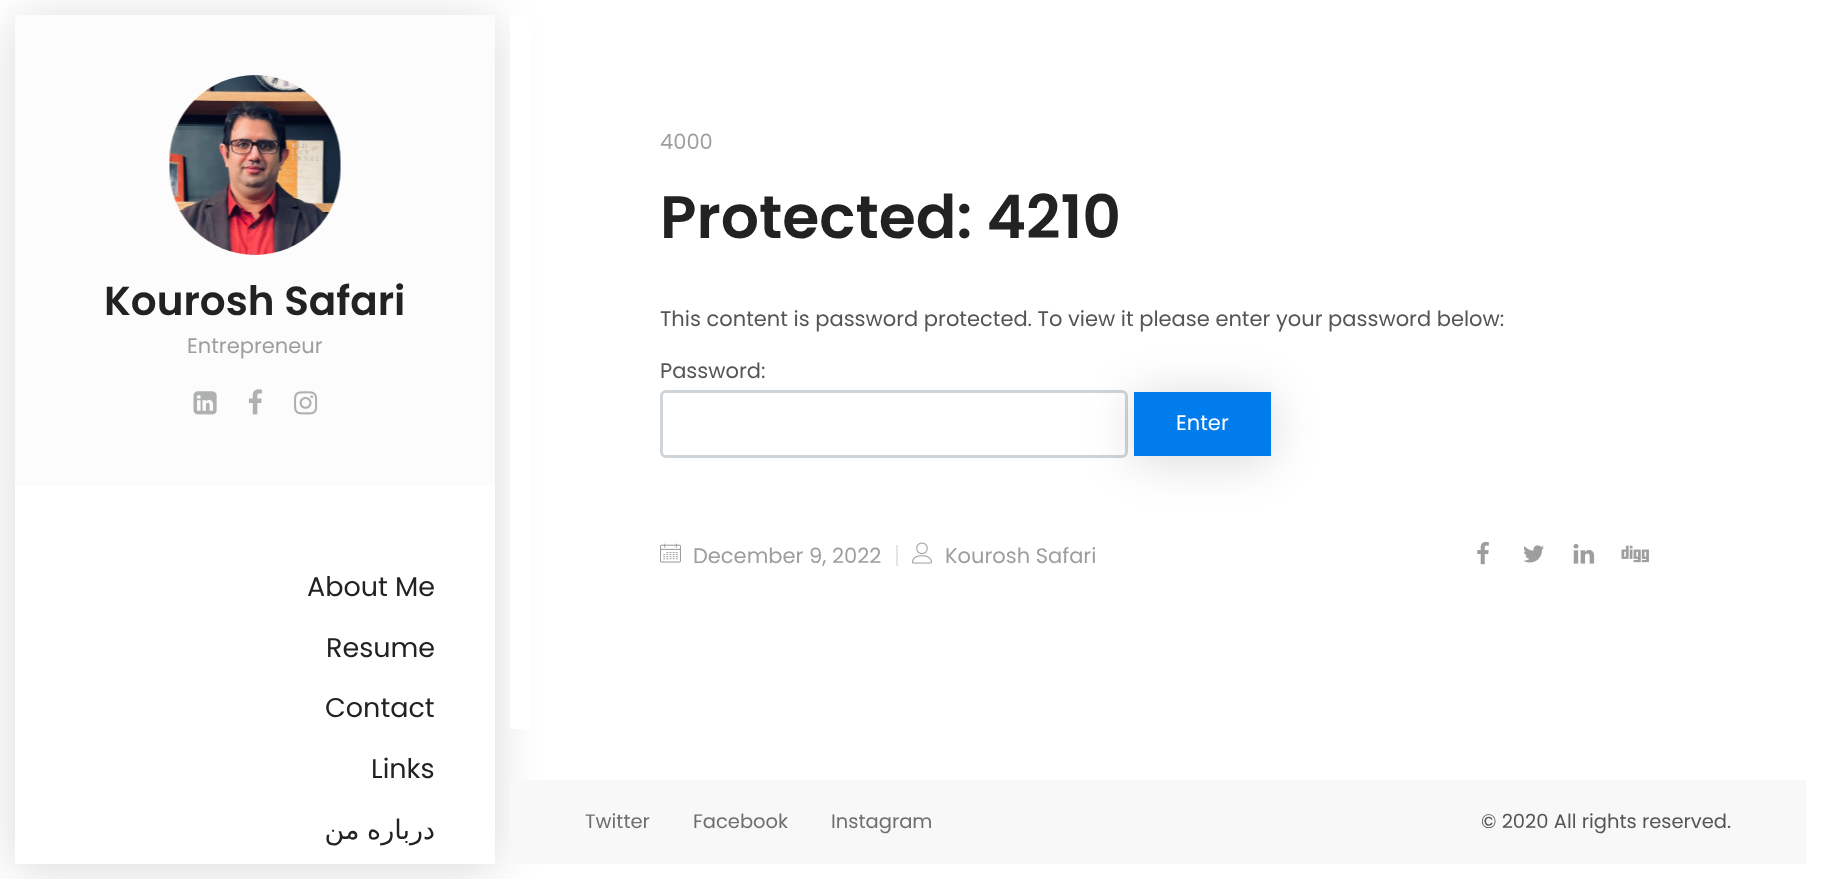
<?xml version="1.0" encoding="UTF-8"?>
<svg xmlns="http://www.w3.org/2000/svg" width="1821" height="879">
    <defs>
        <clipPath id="clip1"><path d="M 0 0 H 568 V 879 H 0 Z M 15 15 H 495 V 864 H 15 Z" clip-rule="evenodd"/></clipPath>
        <filter id="blur1" x="-50%" y="-200%" width="200%" height="500%"><feGaussianBlur stdDeviation="24"/></filter>
    </defs>
    <rect width="100%" height="100%" fill="#FFFFFF"/>
    <g clip-path="url(#clip1)">
        <rect x="15" y="20" width="480" height="849" fill="#000000" fill-opacity="0.15" filter="url(#blur1)"/>
    </g>
    <rect x="15" y="15" width="480" height="471" fill="#FCFCFC"/>
    <image x="169" y="75" width="172" height="180" href="img_01.png"/>
    <text x="104" y="315" font-family="Poppins" font-size="40.5" font-weight="600" fill="#222222">Kourosh Safari</text>
    <text x="187" y="353" font-family="Poppins" font-size="21" fill="#9E9E9E">Entrepreneur</text>
    <image x="193" y="391" width="24" height="24" href="img_02.png"/>
    <image x="248" y="389" width="14" height="26" href="img_03.png"/>
    <image x="294" y="391" width="24" height="24" href="img_04.png"/>
    <text x="307" y="596" font-family="Poppins" font-size="27" fill="#222222">About Me</text>
    <text x="326" y="657" font-family="Poppins" font-size="27" fill="#222222">Resume</text>
    <text x="325" y="717" font-family="Poppins" font-size="27" fill="#222222">Contact</text>
    <text x="371" y="778" font-family="Poppins" font-size="27" fill="#222222">Links</text>
    <text x="435" y="839" word-spacing="-1" font-family="DejaVu Sans" font-size="27" direction="rtl" fill="#222222">درباره من</text>
    <rect x="510" y="15" width="21" height="714" fill="#FFFFFF"/>
    <text x="660" y="149" font-family="Poppins" font-size="21" fill="#9E9E9E">4000</text>
    <text x="660" y="238" font-family="Poppins" font-size="60" font-weight="600" fill="#222222">Protected: 4210</text>
    <text x="660" y="326" font-family="Poppins" font-size="21" fill="#555555">This content is password protected. To view it please enter your password below:</text>
    <text x="660" y="378" font-family="Poppins" font-size="21" fill="#555555">Password:</text>
    <rect x="661.5" y="391.5" width="465" height="65" rx="4.5" fill="none" stroke="#CED4DA" stroke-width="3"/>
    <rect x="1134" y="396" width="137" height="65" fill="#000000" fill-opacity="0.15" filter="url(#blur1)"/>
    <rect x="1134" y="392" width="137" height="64" fill="#007CED"/>
    <text x="1176" y="430" font-family="Poppins" font-size="21" fill="#FFFFFF">Enter</text>
    <image x="660" y="543" width="21" height="20" href="img_05.png"/>
    <text x="693" y="563" font-family="Poppins" font-size="21" fill="#9E9E9E">December 9, 2022</text>
    <rect x="896" y="545" width="2" height="21" fill="#E5E5E5"/>
    <image x="912" y="542" width="20" height="22" href="img_06.png"/>
    <text x="945" y="563" font-family="Poppins" font-size="21" fill="#9E9E9E">Kourosh Safari</text>
    <image x="1477" y="541" width="12" height="24" href="img_07.png"/>
    <image x="1523" y="545" width="21" height="18" href="img_08.png"/>
    <image x="1573" y="544" width="22" height="20" href="img_09.png"/>
    <image x="1621" y="545" width="28" height="18" href="img_10.png"/>
    <rect x="510" y="780" width="1296" height="84" fill="#F8F8F8"/>
    <text x="585" y="828" font-family="Poppins" font-size="19.5" fill="#6E6E6E">Twitter</text>
    <text x="693" y="828" font-family="Poppins" font-size="19.5" fill="#6E6E6E">Facebook</text>
    <text x="831" y="828" font-family="Poppins" font-size="19.5" fill="#6E6E6E">Instagram</text>
    <text x="1481" y="828" font-family="Poppins" font-size="19.5" fill="#555555">© 2020 All rights reserved.</text>
</svg>
